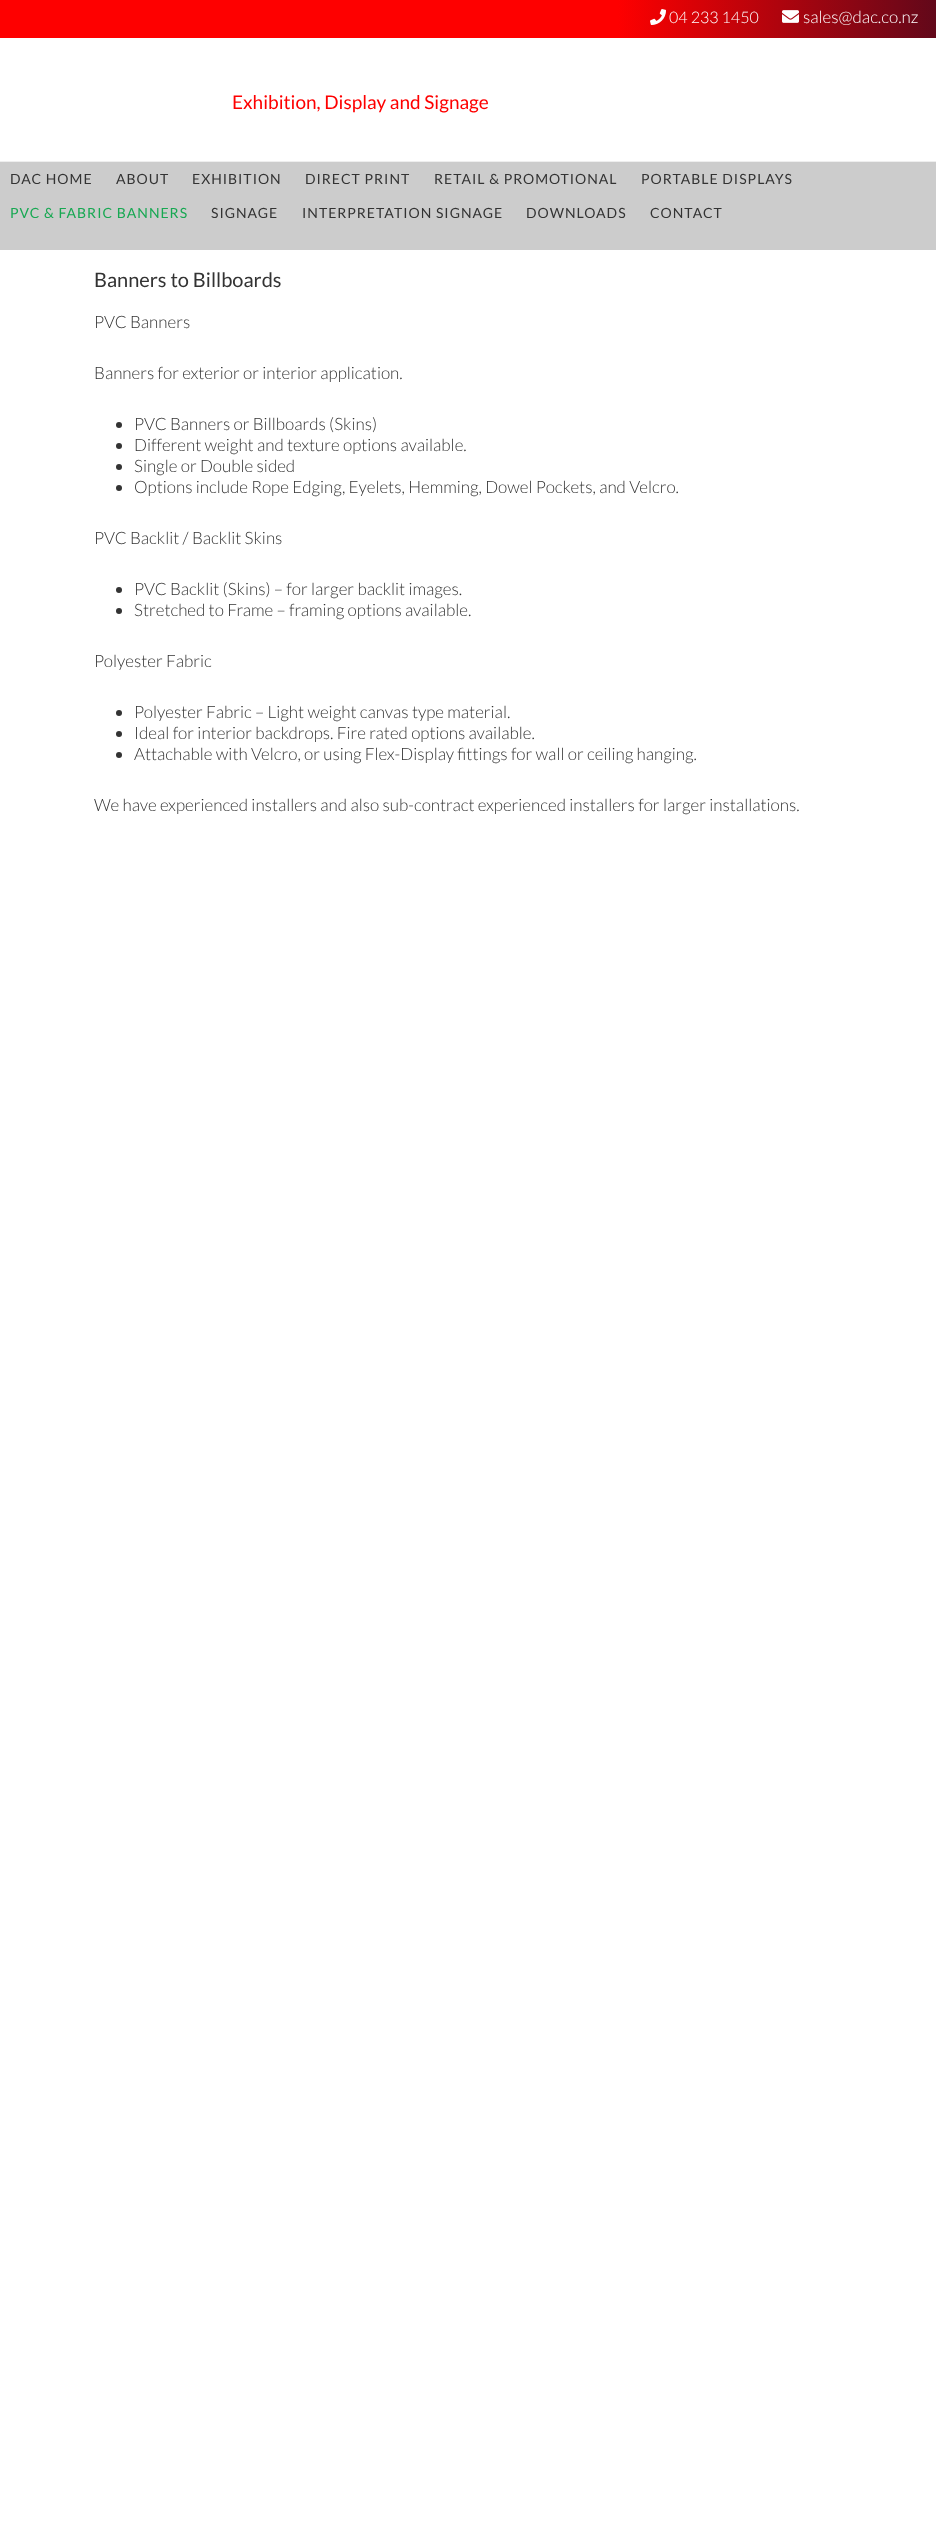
<?xml version="1.0" encoding="UTF-8"?>
<svg xmlns="http://www.w3.org/2000/svg" width="936" height="2546">
    <defs>
        <linearGradient id="g1" gradientUnits="userSpaceOnUse" x1="0" y1="19" x2="936" y2="19"><stop offset="0" stop-color="#FE0000"/><stop offset="0.66" stop-color="#FE0000"/><stop offset="1" stop-color="#62081A"/></linearGradient>
    </defs>
    <rect width="100%" height="100%" fill="#FFFFFF"/>
    <rect x="0" y="0" width="936" height="38" fill="url(#g1)"/>
    <image x="650" y="9" width="16" height="16" href="img_01.png"/>
    <text x="669" y="23" font-family="Lato" font-size="16" font-weight="300" fill="#FFFFFF">04 233 1450</text>
    <image x="782" y="10" width="17" height="13" href="img_02.png"/>
    <text x="803" y="23" font-family="Lato" font-size="17" font-weight="300" fill="#FFFFFF">sales@dac.co.nz</text>
    <rect x="0" y="161" width="936" height="1" fill="#EEEEEE"/>
    <text x="232" y="109" font-family="Lato" font-size="19" fill="#FE0000">Exhibition, Display and Signage</text>
    <rect x="0" y="162" width="936" height="88" fill="#CCCCCC"/>
    <text x="10" y="184" font-family="Lato" font-size="14" letter-spacing="1" fill="#333333">DAC HOME</text>
    <text x="116" y="184" font-family="Lato" font-size="14" letter-spacing="1" fill="#333333">ABOUT</text>
    <text x="192" y="184" font-family="Lato" font-size="14" letter-spacing="1" fill="#333333">EXHIBITION</text>
    <text x="305" y="184" font-family="Lato" font-size="14" letter-spacing="1" fill="#333333">DIRECT PRINT</text>
    <text x="434" y="184" font-family="Lato" font-size="14" letter-spacing="1" fill="#333333">RETAIL &amp; PROMOTIONAL</text>
    <text x="641" y="184" font-family="Lato" font-size="14" letter-spacing="1" fill="#333333">PORTABLE DISPLAYS</text>
    <text x="10" y="218" font-family="Lato" font-size="14" letter-spacing="1" fill="#17A852">PVC &amp; FABRIC BANNERS</text>
    <text x="211" y="218" font-family="Lato" font-size="14" letter-spacing="1" fill="#333333">SIGNAGE</text>
    <text x="302" y="218" font-family="Lato" font-size="14" letter-spacing="1" fill="#333333">INTERPRETATION SIGNAGE</text>
    <text x="526" y="218" font-family="Lato" font-size="14" letter-spacing="1" fill="#333333">DOWNLOADS</text>
    <text x="650" y="218" font-family="Lato" font-size="14" letter-spacing="1" fill="#333333">CONTACT</text>
    <text x="94" y="287" font-family="Lato" font-size="20" fill="#333333">Banners to Billboards</text>
    <text x="94" y="328" font-family="Lato" font-size="17" font-weight="300" fill="#333333">PVC Banners</text>
    <text x="94" y="379" font-family="Lato" font-size="17" font-weight="300" fill="#333333">Banners for exterior or interior application.</text>
    <circle cx="119" cy="425" r="3" fill="#333333"/>
    <text x="134" y="430" font-family="Lato" font-size="17" font-weight="300" fill="#333333">PVC Banners or Billboards (Skins)</text>
    <circle cx="119" cy="446" r="3" fill="#333333"/>
    <text x="134" y="451" font-family="Lato" font-size="17" font-weight="300" fill="#333333">Different weight and texture options available.</text>
    <circle cx="119" cy="467" r="3" fill="#333333"/>
    <text x="134" y="472" font-family="Lato" font-size="17" font-weight="300" fill="#333333">Single or Double sided</text>
    <circle cx="119" cy="488" r="3" fill="#333333"/>
    <text x="134" y="493" font-family="Lato" font-size="17" font-weight="300" fill="#333333">Options include Rope Edging, Eyelets, Hemming, Dowel Pockets, and Velcro.</text>
    <text x="94" y="544" font-family="Lato" font-size="17" font-weight="300" fill="#333333">PVC Backlit / Backlit Skins</text>
    <circle cx="119" cy="590" r="3" fill="#333333"/>
    <text x="134" y="595" font-family="Lato" font-size="17" font-weight="300" fill="#333333">PVC Backlit (Skins) – for larger backlit images.</text>
    <circle cx="119" cy="611" r="3" fill="#333333"/>
    <text x="134" y="616" font-family="Lato" font-size="17" font-weight="300" fill="#333333">Stretched to Frame – framing options available.</text>
    <text x="94" y="667" font-family="Lato" font-size="17" font-weight="300" fill="#333333">Polyester Fabric</text>
    <circle cx="119" cy="713" r="3" fill="#333333"/>
    <text x="134" y="718" font-family="Lato" font-size="17" font-weight="300" fill="#333333">Polyester Fabric – Light weight canvas type material.</text>
    <circle cx="119" cy="734" r="3" fill="#333333"/>
    <text x="134" y="739" font-family="Lato" font-size="17" font-weight="300" fill="#333333">Ideal for interior backdrops. Fire rated options available.</text>
    <circle cx="119" cy="755" r="3" fill="#333333"/>
    <text x="134" y="760" font-family="Lato" font-size="17" font-weight="300" fill="#333333">Attachable with Velcro, or using Flex-Display fittings for wall or ceiling hanging.</text>
    <text x="94" y="811" font-family="Lato" font-size="17" font-weight="300" fill="#333333">We have experienced installers and also sub-contract experienced installers for larger installations.</text>
</svg>
